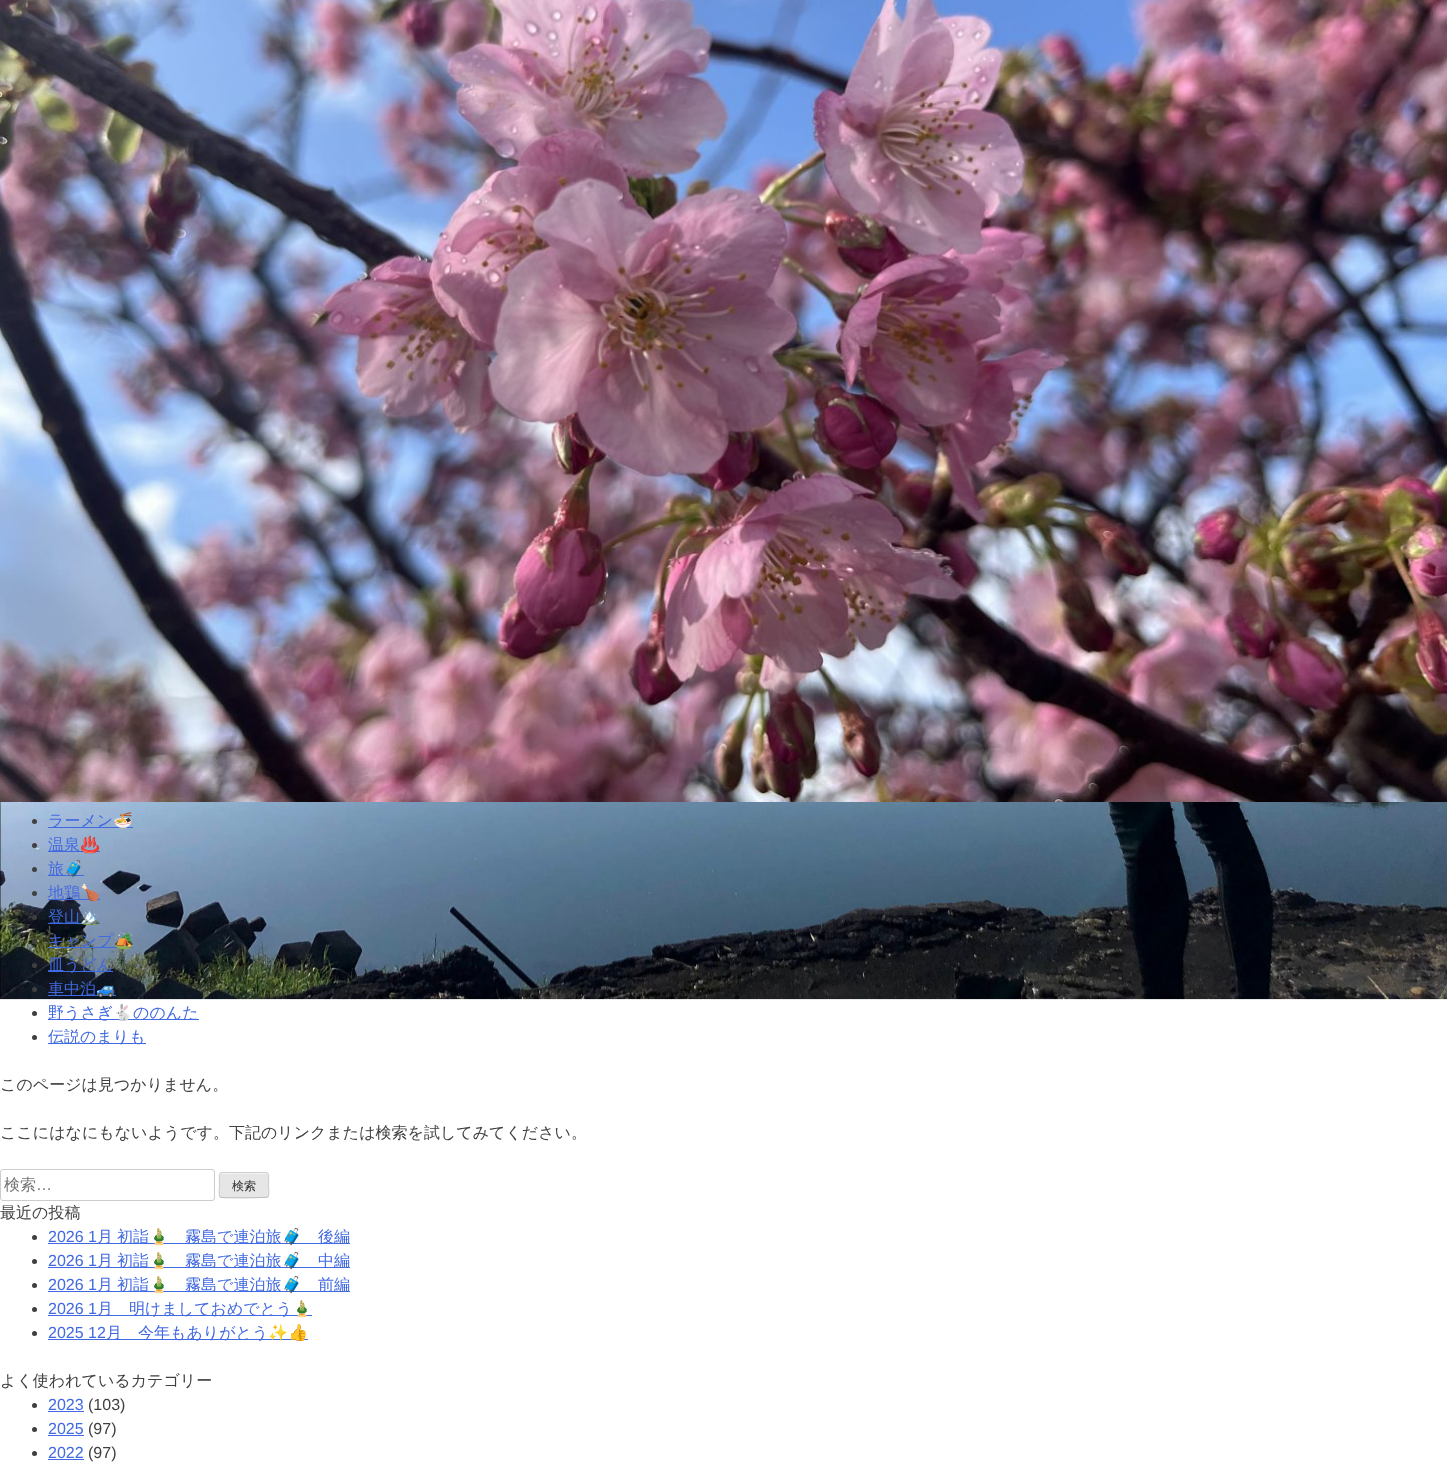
<?xml version="1.0" encoding="UTF-8"?>
<svg xmlns="http://www.w3.org/2000/svg" width="1447" height="1470">
    <rect width="100%" height="100%" fill="#FFFFFF"/>
    <image x="0" y="802" width="1447" height="198" href="img_01.png"/>
    <image x="0" y="0" width="1447" height="802" href="img_02.png"/>
    <circle cx="34.5" cy="821.5" r="2.5" fill="#404040"/>
    <rect x="48" y="827" width="85" height="1" fill="#4169E1"/>
    <text x="48" y="826" font-family="WenQuanYi Zen Hei" font-size="16" font-weight="500" fill="#4169E1">ラーメン</text>
    <text x="113" y="826" font-family="Noto Color Emoji" font-size="16" fill="#4169E1">🍜</text>
    <circle cx="34.5" cy="845.5" r="2.5" fill="#404040"/>
    <rect x="48" y="851" width="52" height="1" fill="#4169E1"/>
    <text x="48" y="850" font-family="WenQuanYi Zen Hei" font-size="16" font-weight="500" fill="#4169E1">温泉</text>
    <text x="80" y="850" font-family="Noto Color Emoji" font-size="16" fill="#4169E1">♨️</text>
    <circle cx="34.5" cy="869.5" r="2.5" fill="#404040"/>
    <rect x="48" y="875" width="36" height="1" fill="#4169E1"/>
    <text x="48" y="874" font-family="WenQuanYi Zen Hei" font-size="16" font-weight="500" fill="#4169E1">旅</text>
    <text x="64" y="874" font-family="Noto Color Emoji" font-size="16" fill="#4169E1">🧳</text>
    <circle cx="34.5" cy="893.5" r="2.5" fill="#404040"/>
    <rect x="48" y="899" width="52" height="1" fill="#4169E1"/>
    <text x="48" y="898" font-family="WenQuanYi Zen Hei" font-size="16" font-weight="500" fill="#4169E1">地鶏</text>
    <text x="80" y="898" font-family="Noto Color Emoji" font-size="16" fill="#4169E1">🍗</text>
    <circle cx="34.5" cy="917.5" r="2.5" fill="#404040"/>
    <rect x="48" y="923" width="52" height="1" fill="#4169E1"/>
    <text x="48" y="922" font-family="WenQuanYi Zen Hei" font-size="16" font-weight="500" fill="#4169E1">登山</text>
    <text x="80" y="922" font-family="Noto Color Emoji" font-size="16" fill="#4169E1">🏔️</text>
    <circle cx="34.5" cy="941.5" r="2.5" fill="#404040"/>
    <rect x="48" y="947" width="85" height="1" fill="#4169E1"/>
    <text x="48" y="946" font-family="WenQuanYi Zen Hei" font-size="16" font-weight="500" fill="#4169E1">キャンプ</text>
    <text x="114" y="946" font-family="Noto Color Emoji" font-size="16" fill="#4169E1">🏕️</text>
    <circle cx="34.5" cy="965.5" r="2.5" fill="#404040"/>
    <rect x="48" y="971" width="65" height="1" fill="#4169E1"/>
    <text x="48" y="970" font-family="WenQuanYi Zen Hei" font-size="16" font-weight="500" fill="#4169E1">皿うどん</text>
    <circle cx="34.5" cy="989.5" r="2.5" fill="#404040"/>
    <rect x="48" y="995" width="68" height="1" fill="#4169E1"/>
    <text x="48" y="994" font-family="WenQuanYi Zen Hei" font-size="16" font-weight="500" fill="#4169E1">車中泊</text>
    <text x="96" y="994" font-family="Noto Color Emoji" font-size="16" fill="#4169E1">🚙</text>
    <circle cx="34.5" cy="1013.5" r="2.5" fill="#404040"/>
    <rect x="48" y="1019" width="151" height="1" fill="#4169E1"/>
    <text x="48" y="1018" font-family="WenQuanYi Zen Hei" font-size="16" font-weight="500" fill="#4169E1">野うさぎ</text>
    <text x="113" y="1018" font-family="Noto Color Emoji" font-size="16" fill="#4169E1">🐇</text>
    <text x="133" y="1018" font-family="WenQuanYi Zen Hei" font-size="16" font-weight="500" fill="#4169E1">ののんた</text>
    <circle cx="34.5" cy="1037.5" r="2.5" fill="#404040"/>
    <rect x="48" y="1043" width="98" height="1" fill="#4169E1"/>
    <text x="48" y="1042" font-family="WenQuanYi Zen Hei" font-size="16" font-weight="500" fill="#4169E1">伝説のまりも</text>
    <text x="0" y="1090" font-family="WenQuanYi Zen Hei" font-size="16" font-weight="500" fill="#404040">このページは見つかりません。</text>
    <text x="0" y="1138" font-family="WenQuanYi Zen Hei" font-size="16" font-weight="500" fill="#404040">ここにはなにもないようです。下記のリンクまたは検索を試してみてください。</text>
    <rect x="0.5" y="1169.5" width="214" height="31" rx="2.5" fill="none" stroke="#CCCCCC"/>
    <text x="4" y="1190" font-family="WenQuanYi Zen Hei" font-size="16" font-weight="500" fill="#757575">検索</text>
    <text x="36" y="1190" font-family="Liberation Sans" font-size="16" fill="#757575">…</text>
    <rect x="219" y="1172" width="50" height="26" rx="3" fill="#E6E6E6"/>
    <path d="M 222 1174 H 266 C 267 1174 268 1175 268 1176 C 268 1171 263 1173 259 1173 H 229 C 225 1173 220 1171 220 1176 C 220 1175 221 1174 222 1174 Z" fill="#F3F3F3"/>
    <path d="M 268 1197 C 266.5 1198 226 1198 222 1197.5 L 220 1197" fill="none" stroke="#BBBBBB"/>
    <path d="M 220 1197 C 218.5 1195 219.5 1187.5 219.5 1185 C 219.5 1172 217 1172.5 229.5 1172.5 H 258.5 C 271 1172.5 268.5 1172 268.5 1185 C 268.5 1187.5 269.5 1195 268 1197" fill="none" stroke="#CCCCCC"/>
    <text x="232" y="1190" font-family="WenQuanYi Zen Hei" font-size="12" font-weight="500" fill="#2E2E2E">検索</text>
    <text x="0" y="1218" font-family="WenQuanYi Zen Hei" font-size="16" font-weight="500" fill="#404040">最近の投稿</text>
    <circle cx="34.5" cy="1237.5" r="2.5" fill="#404040"/>
    <text x="48" y="1242" font-family="Liberation Sans" font-size="16" fill="#4169E1">2026 1</text>
    <rect x="48" y="1243" width="302" height="1" fill="#4169E1"/>
    <text x="97" y="1242" font-family="WenQuanYi Zen Hei" font-size="16" font-weight="500" fill="#4169E1">月</text>
    <text x="117" y="1242" font-family="WenQuanYi Zen Hei" font-size="16" font-weight="500" fill="#4169E1">初詣</text>
    <text x="149" y="1242" font-family="Noto Color Emoji" font-size="16" fill="#4169E1">🎍</text>
    <text x="185" y="1242" font-family="WenQuanYi Zen Hei" font-size="16" font-weight="500" fill="#4169E1">霧島で連泊旅</text>
    <text x="282" y="1242" font-family="Noto Color Emoji" font-size="16" fill="#4169E1">🧳</text>
    <text x="318" y="1242" font-family="WenQuanYi Zen Hei" font-size="16" font-weight="500" fill="#4169E1">後編</text>
    <circle cx="34.5" cy="1261.5" r="2.5" fill="#404040"/>
    <text x="48" y="1266" font-family="Liberation Sans" font-size="16" fill="#4169E1">2026 1</text>
    <rect x="48" y="1267" width="302" height="1" fill="#4169E1"/>
    <text x="97" y="1266" font-family="WenQuanYi Zen Hei" font-size="16" font-weight="500" fill="#4169E1">月</text>
    <text x="117" y="1266" font-family="WenQuanYi Zen Hei" font-size="16" font-weight="500" fill="#4169E1">初詣</text>
    <text x="149" y="1266" font-family="Noto Color Emoji" font-size="16" fill="#4169E1">🎍</text>
    <text x="185" y="1266" font-family="WenQuanYi Zen Hei" font-size="16" font-weight="500" fill="#4169E1">霧島で連泊旅</text>
    <text x="282" y="1266" font-family="Noto Color Emoji" font-size="16" fill="#4169E1">🧳</text>
    <text x="318" y="1266" font-family="WenQuanYi Zen Hei" font-size="16" font-weight="500" fill="#4169E1">中編</text>
    <circle cx="34.5" cy="1285.5" r="2.5" fill="#404040"/>
    <text x="48" y="1290" font-family="Liberation Sans" font-size="16" fill="#4169E1">2026 1</text>
    <rect x="48" y="1291" width="302" height="1" fill="#4169E1"/>
    <text x="97" y="1290" font-family="WenQuanYi Zen Hei" font-size="16" font-weight="500" fill="#4169E1">月</text>
    <text x="117" y="1290" font-family="WenQuanYi Zen Hei" font-size="16" font-weight="500" fill="#4169E1">初詣</text>
    <text x="149" y="1290" font-family="Noto Color Emoji" font-size="16" fill="#4169E1">🎍</text>
    <text x="185" y="1290" font-family="WenQuanYi Zen Hei" font-size="16" font-weight="500" fill="#4169E1">霧島で連泊旅</text>
    <text x="282" y="1290" font-family="Noto Color Emoji" font-size="16" fill="#4169E1">🧳</text>
    <text x="318" y="1290" font-family="WenQuanYi Zen Hei" font-size="16" font-weight="500" fill="#4169E1">前編</text>
    <circle cx="34.5" cy="1309.5" r="2.5" fill="#404040"/>
    <text x="48" y="1314" font-family="Liberation Sans" font-size="16" fill="#4169E1">2026 1</text>
    <rect x="48" y="1315" width="264" height="1" fill="#4169E1"/>
    <text x="97" y="1314" font-family="WenQuanYi Zen Hei" font-size="16" font-weight="500" fill="#4169E1">月　明けましておめでとう</text>
    <text x="292" y="1314" font-family="Noto Color Emoji" font-size="16" fill="#4169E1">🎍</text>
    <circle cx="34.5" cy="1333.5" r="2.5" fill="#404040"/>
    <text x="48" y="1338" font-family="Liberation Sans" font-size="16" fill="#4169E1">2025 12</text>
    <rect x="48" y="1339" width="260" height="1" fill="#4169E1"/>
    <text x="106" y="1338" font-family="WenQuanYi Zen Hei" font-size="16" font-weight="500" fill="#4169E1">月　今年もありがとう</text>
    <text x="268" y="1338" font-family="Noto Color Emoji" font-size="16" fill="#4169E1">✨👍</text>
    <text x="0" y="1386" font-family="WenQuanYi Zen Hei" font-size="16" font-weight="500" fill="#404040">よく使われているカテゴリー</text>
    <circle cx="34.5" cy="1405.5" r="2.5" fill="#404040"/>
    <text x="48" y="1410" font-family="Liberation Sans" font-size="16" fill="#4169E1">2023</text>
    <rect x="48" y="1411" width="36" height="1" fill="#4169E1"/>
    <text x="88" y="1410" font-family="Liberation Sans" font-size="16" fill="#404040">(103)</text>
    <circle cx="34.5" cy="1429.5" r="2.5" fill="#404040"/>
    <text x="48" y="1434" font-family="Liberation Sans" font-size="16" fill="#4169E1">2025</text>
    <rect x="48" y="1435" width="36" height="1" fill="#4169E1"/>
    <text x="88" y="1434" font-family="Liberation Sans" font-size="16" fill="#404040">(97)</text>
    <circle cx="34.5" cy="1453.5" r="2.5" fill="#404040"/>
    <text x="48" y="1458" font-family="Liberation Sans" font-size="16" fill="#4169E1">2022</text>
    <rect x="48" y="1459" width="36" height="1" fill="#4169E1"/>
    <text x="88" y="1458" font-family="Liberation Sans" font-size="16" fill="#404040">(97)</text>
</svg>
